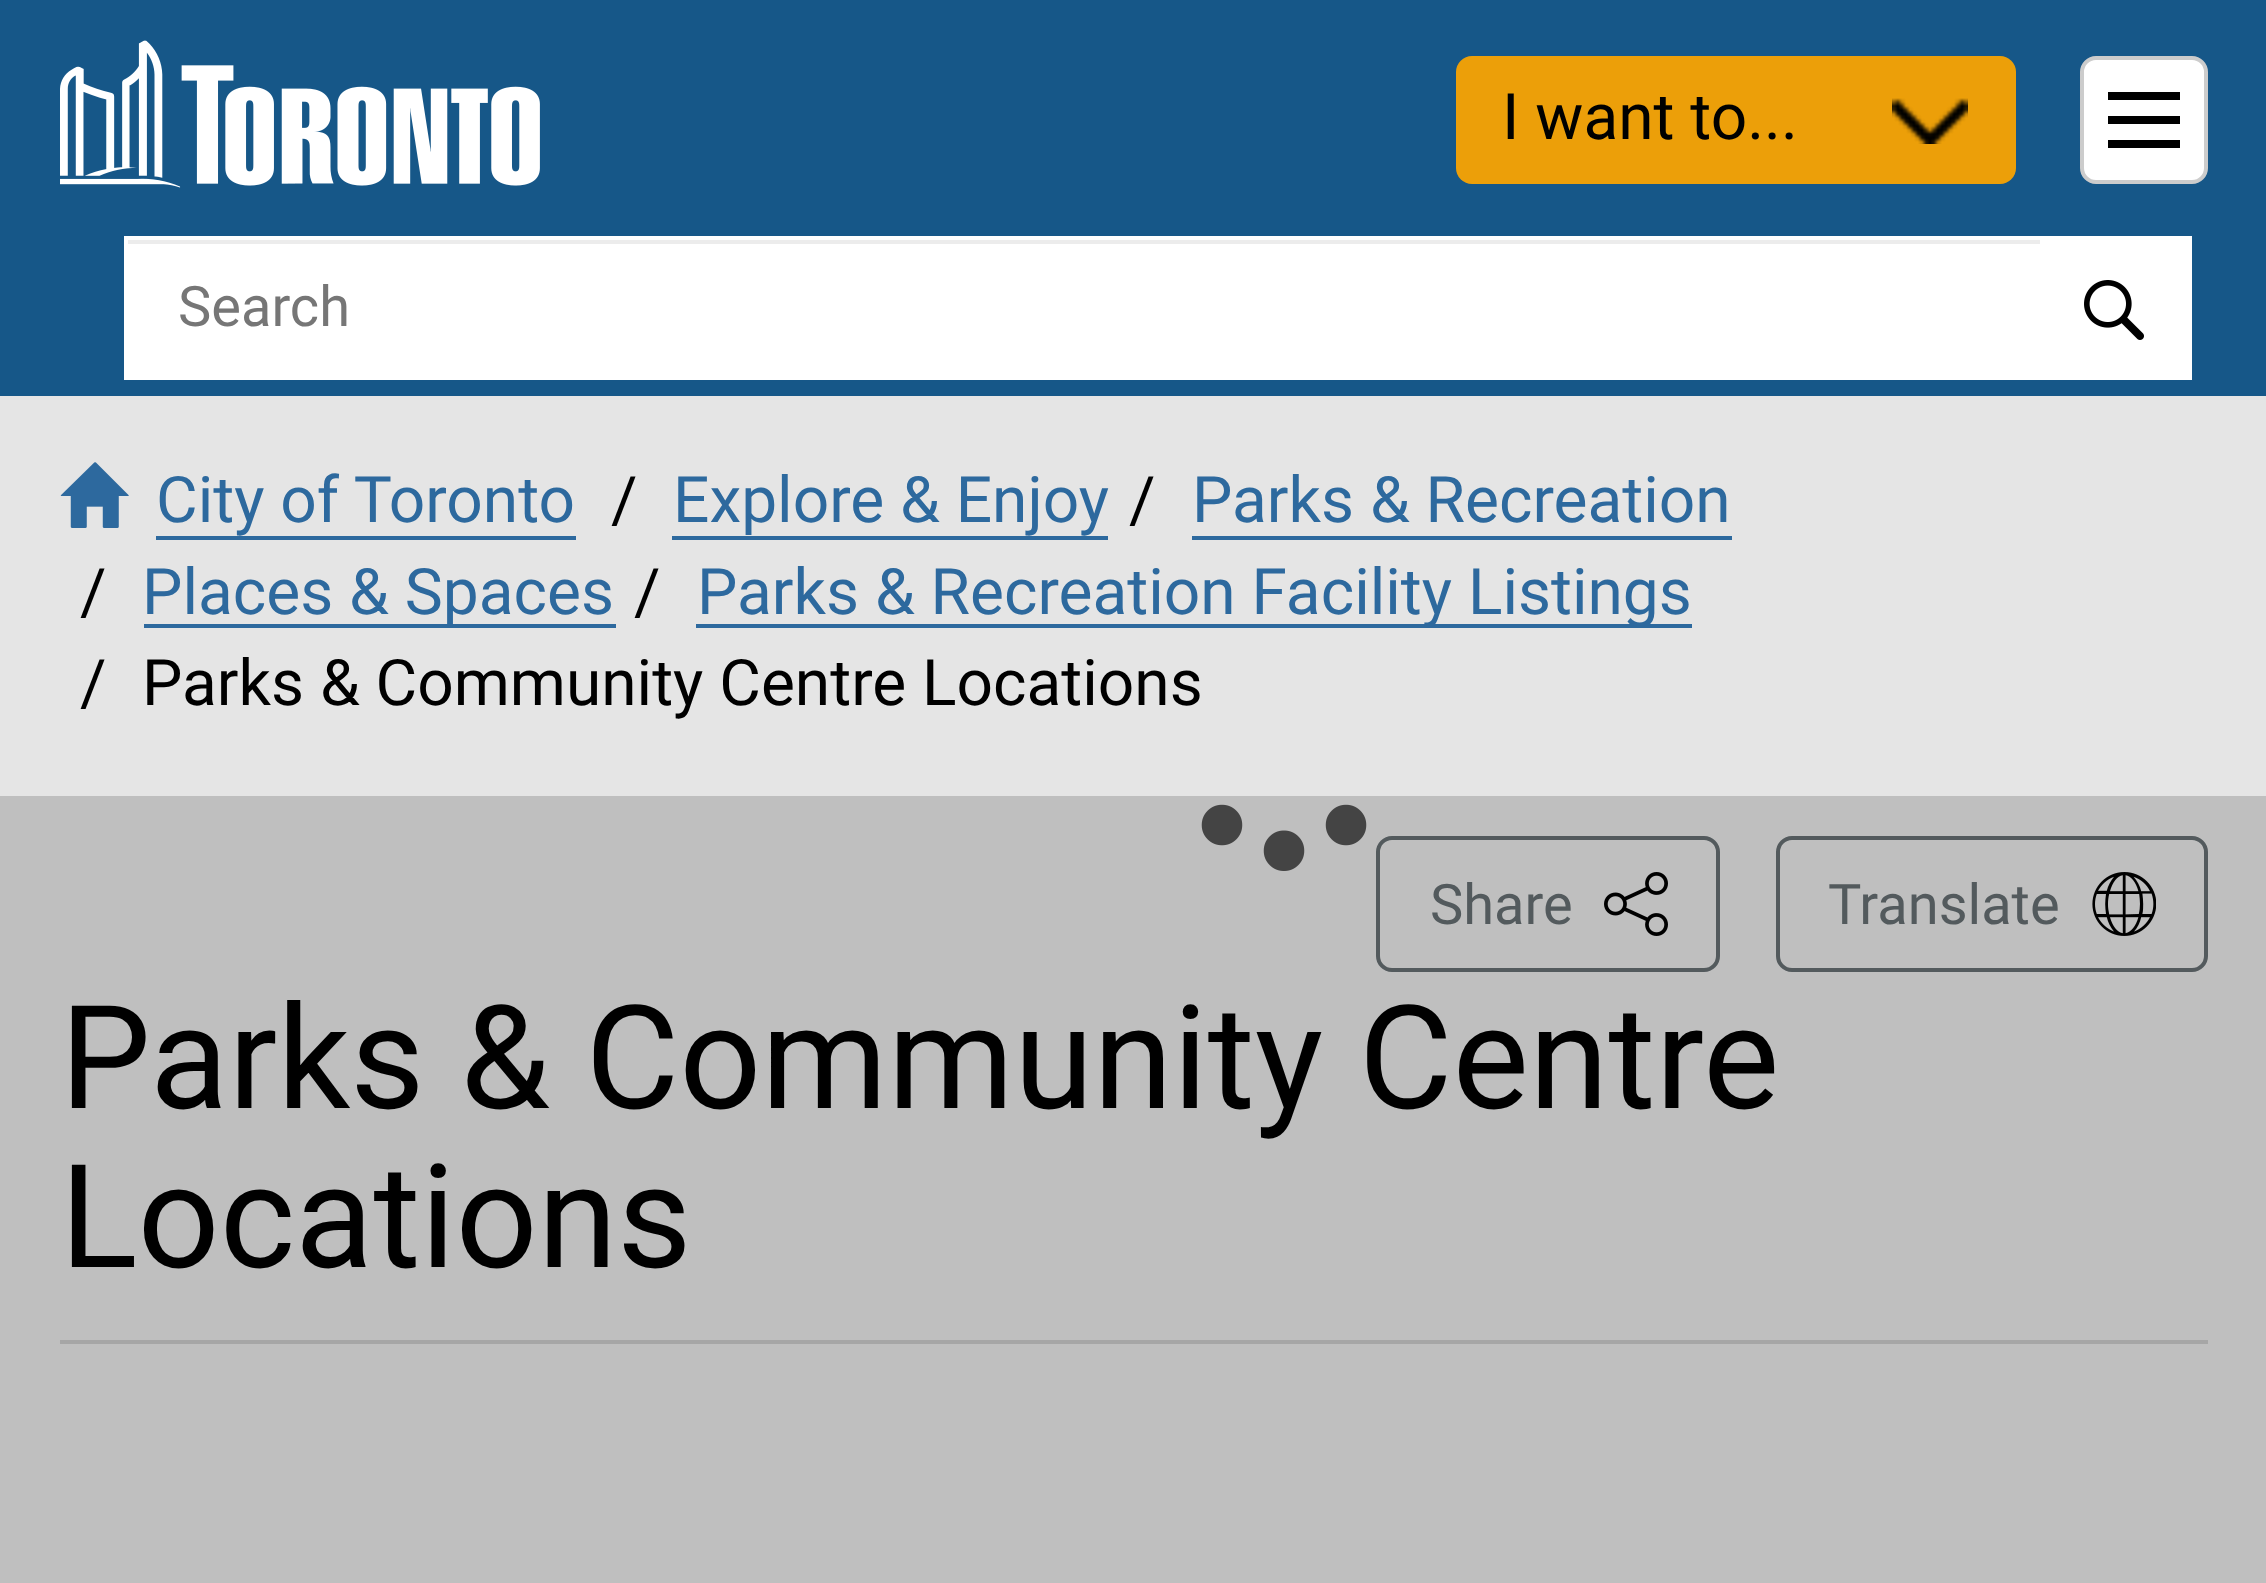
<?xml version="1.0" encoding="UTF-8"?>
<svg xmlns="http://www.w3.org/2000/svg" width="2266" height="1583">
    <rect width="100%" height="100%" fill="#BFBFBF"/>
    <rect x="0" y="0" width="2266" height="396" fill="#165788"/>
    <image x="60" y="40" width="480" height="148" href="img_01.png"/>
    <rect x="1456" y="56" width="560" height="128" rx="16" fill="#EC9F09"/>
    <image x="1892" y="98" width="76" height="46" href="img_02.png"/>
    <text x="1502" y="139" font-family="Roboto" font-size="64" fill="#000000">I want to...</text>
    <rect x="2082" y="58" width="124" height="124" rx="14" fill="#FFFFFF" stroke="#CCCCCC" stroke-width="4"/>
    <rect x="2108" y="116" width="72" height="8" fill="#000000"/>
    <rect x="2108" y="92" width="72" height="8" fill="#000000"/>
    <rect x="2108" y="140" width="72" height="8" fill="#000000"/>
    <rect x="124" y="236" width="2068" height="144" fill="#FFFFFF"/>
    <image x="2084" y="280" width="60" height="60" href="img_03.png"/>
    <rect x="128" y="240" width="1912" height="4" fill="#ECECEC"/>
    <text x="178" y="326" font-family="Roboto" font-size="56" fill="#767676">Search</text>
    <rect x="0" y="396" width="2266" height="400" fill="#E5E5E5"/>
    <image x="60" y="462" width="69" height="66" href="img_04.png"/>
    <text x="156" y="522" font-family="Roboto" font-size="64" fill="#2D699E">City of Toronto</text>
    <rect x="156" y="536" width="420" height="4" fill="#2D699E"/>
    <text x="611" y="522" font-family="Roboto" font-size="64" fill="#000000">/</text>
    <text x="673" y="522" font-family="Roboto" font-size="64" fill="#2D699E">Explore &amp; Enjoy</text>
    <rect x="672" y="536" width="436" height="4" fill="#2D699E"/>
    <text x="1129" y="522" font-family="Roboto" font-size="64" fill="#000000">/</text>
    <text x="1192" y="522" font-family="Roboto" font-size="64" fill="#2D699E">Parks &amp; Recreation</text>
    <rect x="1192" y="536" width="540" height="4" fill="#2D699E"/>
    <text x="80" y="614" font-family="Roboto" font-size="64" fill="#000000">/</text>
    <rect x="144" y="624" width="472" height="4" fill="#2D699E"/>
    <text x="142" y="614" font-family="Roboto" font-size="64" fill="#2D699E">Places &amp; Spaces</text>
    <text x="634" y="614" font-family="Roboto" font-size="64" fill="#000000">/</text>
    <rect x="696" y="624" width="996" height="4" fill="#2D699E"/>
    <text x="697" y="614" font-family="Roboto" font-size="64" fill="#2D699E">Parks &amp; Recreation Facility Listings</text>
    <text x="80" y="705" font-family="Roboto" font-size="64" fill="#000000">/</text>
    <text x="142" y="705" font-family="Roboto" font-size="64" fill="#000000">Parks &amp; Community Centre Locations</text>
    <image x="1201" y="804" width="166" height="67" href="img_05.png"/>
    <rect x="60" y="1340" width="2148" height="4" fill="#A6A6A6"/>
    <image x="1604" y="872" width="64" height="64" href="img_06.png"/>
    <rect x="1378" y="838" width="340" height="132" rx="14" fill="none" stroke="#535A5D" stroke-width="4"/>
    <text x="1430" y="924" font-family="Roboto" font-size="56" fill="#535A5D">Share</text>
    <image x="2092" y="872" width="64" height="64" href="img_07.png"/>
    <rect x="1778" y="838" width="428" height="132" rx="14" fill="none" stroke="#535A5D" stroke-width="4"/>
    <text x="1828" y="924" font-family="Roboto" font-size="56" fill="#535A5D">Translate</text>
    <text font-family="Roboto" font-size="144" fill="#000000">
        <tspan x="60" y="1108">Parks &amp; Community Centre</tspan>
        <tspan x="60" y="1267">Locations</tspan>
    </text>
</svg>
